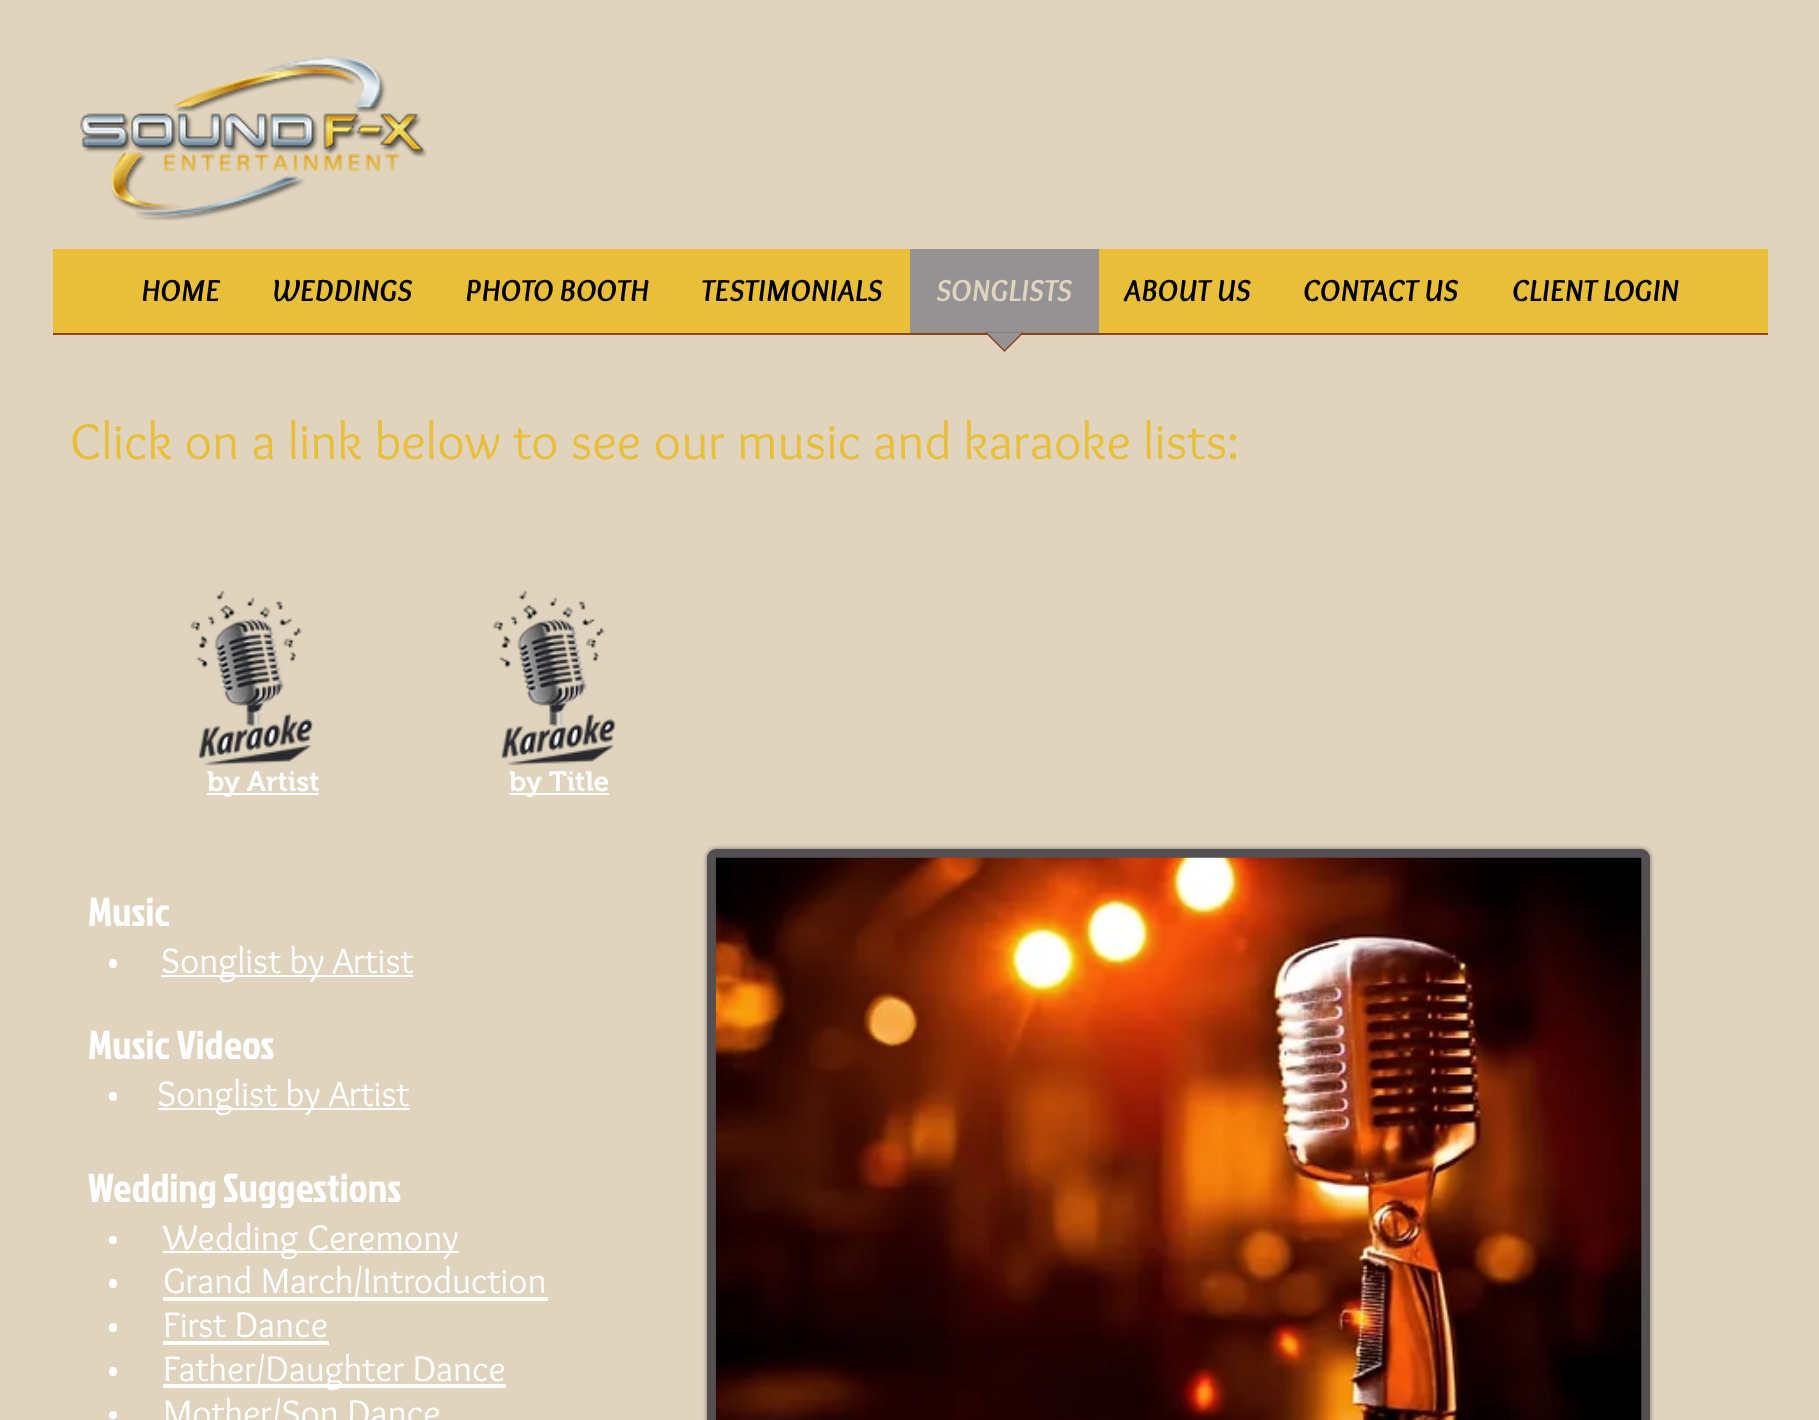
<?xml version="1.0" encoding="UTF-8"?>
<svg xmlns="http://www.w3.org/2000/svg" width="1819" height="1420">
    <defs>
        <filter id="blur1" x="-50%" y="-200%" width="200%" height="500%"><feGaussianBlur stdDeviation="2.5"/></filter>
    </defs>
    <rect width="100%" height="100%" fill="#E0D4BE"/>
    <image x="80" y="56" width="347" height="165" href="img_01.png"/>
    <rect x="53" y="249" width="1715" height="84" fill="#E9BF3A"/>
    <rect x="53" y="333" width="1715" height="2" fill="#8F4120"/>
    <text x="141" y="301" font-family="Overlock" font-size="31.5" font-weight="700" font-style="italic" fill="#000000">HOME</text>
    <text x="272" y="301" font-family="Overlock" font-size="31.5" font-weight="700" font-style="italic" fill="#000000">WEDDINGS</text>
    <text x="465" y="301" font-family="Overlock" font-size="31.5" font-weight="700" font-style="italic" fill="#000000">PHOTO BOOTH</text>
    <text x="701" y="301" font-family="Overlock" font-size="31.5" font-weight="700" font-style="italic" fill="#000000">TESTIMONIALS</text>
    <rect x="910" y="249" width="189" height="84" fill="#959294"/>
    <text x="936" y="301" font-family="Overlock" font-size="31.5" font-weight="700" font-style="italic" fill="#E0D4BE">SONGLISTS</text>
    <path d="M 985 332.5 H 1024 L 1004.5 352 Z" fill="#8F4120"/>
    <path d="M 987 332.5 H 1022 L 1004.5 350 Z" fill="#959294"/>
    <text x="1124" y="301" font-family="Overlock" font-size="31.5" font-weight="700" font-style="italic" fill="#000000">ABOUT US</text>
    <text x="1303" y="301" font-family="Overlock" font-size="31.5" font-weight="700" font-style="italic" fill="#000000">CONTACT US</text>
    <text x="1512" y="301" font-family="Overlock" font-size="31.5" font-weight="700" font-style="italic" fill="#000000">CLIENT LOGIN</text>
    <text x="70" y="459" font-family="Overlock" font-size="52.5" fill="#E9BF3A">Click on a link below to see our music and karaoke lists:</text>
    <image x="190" y="590" width="124" height="176" href="img_02.png"/>
    <rect x="207" y="793" width="112" height="2" fill="#FFFFFF"/>
    <text x="207" y="791" font-family="'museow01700'" font-size="28" font-weight="600" fill="#FFFFFF">by Artist</text>
    <image x="493" y="590" width="124" height="176" href="img_03.png"/>
    <rect x="509" y="793" width="100" height="2" fill="#FFFFFF"/>
    <text x="509" y="791" font-family="'museow01700'" font-size="28" font-weight="600" fill="#FFFFFF">by Title</text>
    <text x="88" y="926" font-family="Jockey One" font-size="40.25" fill="#FFFFFF">Music</text>
    <rect x="109" y="959" width="8" height="9" rx="4" fill="#FFFFFF"/>
    <rect x="161" y="975" width="252" height="2" fill="#FFFFFF"/>
    <text x="161" y="973" font-family="Overlock" font-size="36.75" fill="#FFFFFF">Songlist by Artist</text>
    <text x="88" y="1059" font-family="Jockey One" font-size="40.25" fill="#FFFFFF">Music Videos</text>
    <rect x="109" y="1092" width="8" height="9" rx="4" fill="#FFFFFF"/>
    <rect x="158" y="1108" width="252" height="2" fill="#FFFFFF"/>
    <text x="157" y="1106" font-family="Overlock" font-size="36.75" fill="#FFFFFF">Songlist by Artist</text>
    <text x="88" y="1202" font-family="Jockey One" font-size="40.25" fill="#FFFFFF">Wedding Suggestions</text>
    <circle cx="113" cy="1240" r="4" fill="#FFFFFF"/>
    <rect x="163" y="1251" width="296" height="2" fill="#FFFFFF"/>
    <text x="163" y="1250" font-family="Overlock" font-size="36.75" fill="#FFFFFF">Wedding Ceremony</text>
    <rect x="109" y="1279" width="8" height="9" rx="4" fill="#FFFFFF"/>
    <rect x="163" y="1297" width="385" height="4" fill="#FFFFFF"/>
    <text x="163" y="1293" font-family="Overlock" font-size="36.75" fill="#FFFFFF">Grand March/Introduction</text>
    <rect x="109" y="1323" width="8" height="9" rx="4" fill="#FFFFFF"/>
    <text x="163" y="1337" font-family="Overlock" font-size="36.75" fill="#FFFFFF">First Dance</text>
    <rect x="163" y="1341" width="166" height="4" fill="#FFFFFF"/>
    <rect x="109" y="1367" width="8" height="9" rx="4" fill="#FFFFFF"/>
    <rect x="163" y="1384" width="343" height="4" fill="#FFFFFF"/>
    <text x="163" y="1381" font-family="Overlock" font-size="36.75" fill="#FFFFFF">Father/Daughter Dance</text>
    <circle cx="113" cy="1415" r="4" fill="#FFFFFF"/>
    <text x="163" y="1425" font-family="Overlock" font-size="36.75" fill="#FFFFFF">Mother/Son Dance</text>
    <rect x="707" y="849" width="943" height="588" rx="9" fill="#000000" fill-opacity="0.5" filter="url(#blur1)"/>
    <rect x="711.5" y="853.5" width="934" height="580" rx="4.5" fill="none" stroke="#534F52" stroke-width="9"/>
    <image x="715" y="857" width="927" height="563" href="img_04.png"/>
</svg>
